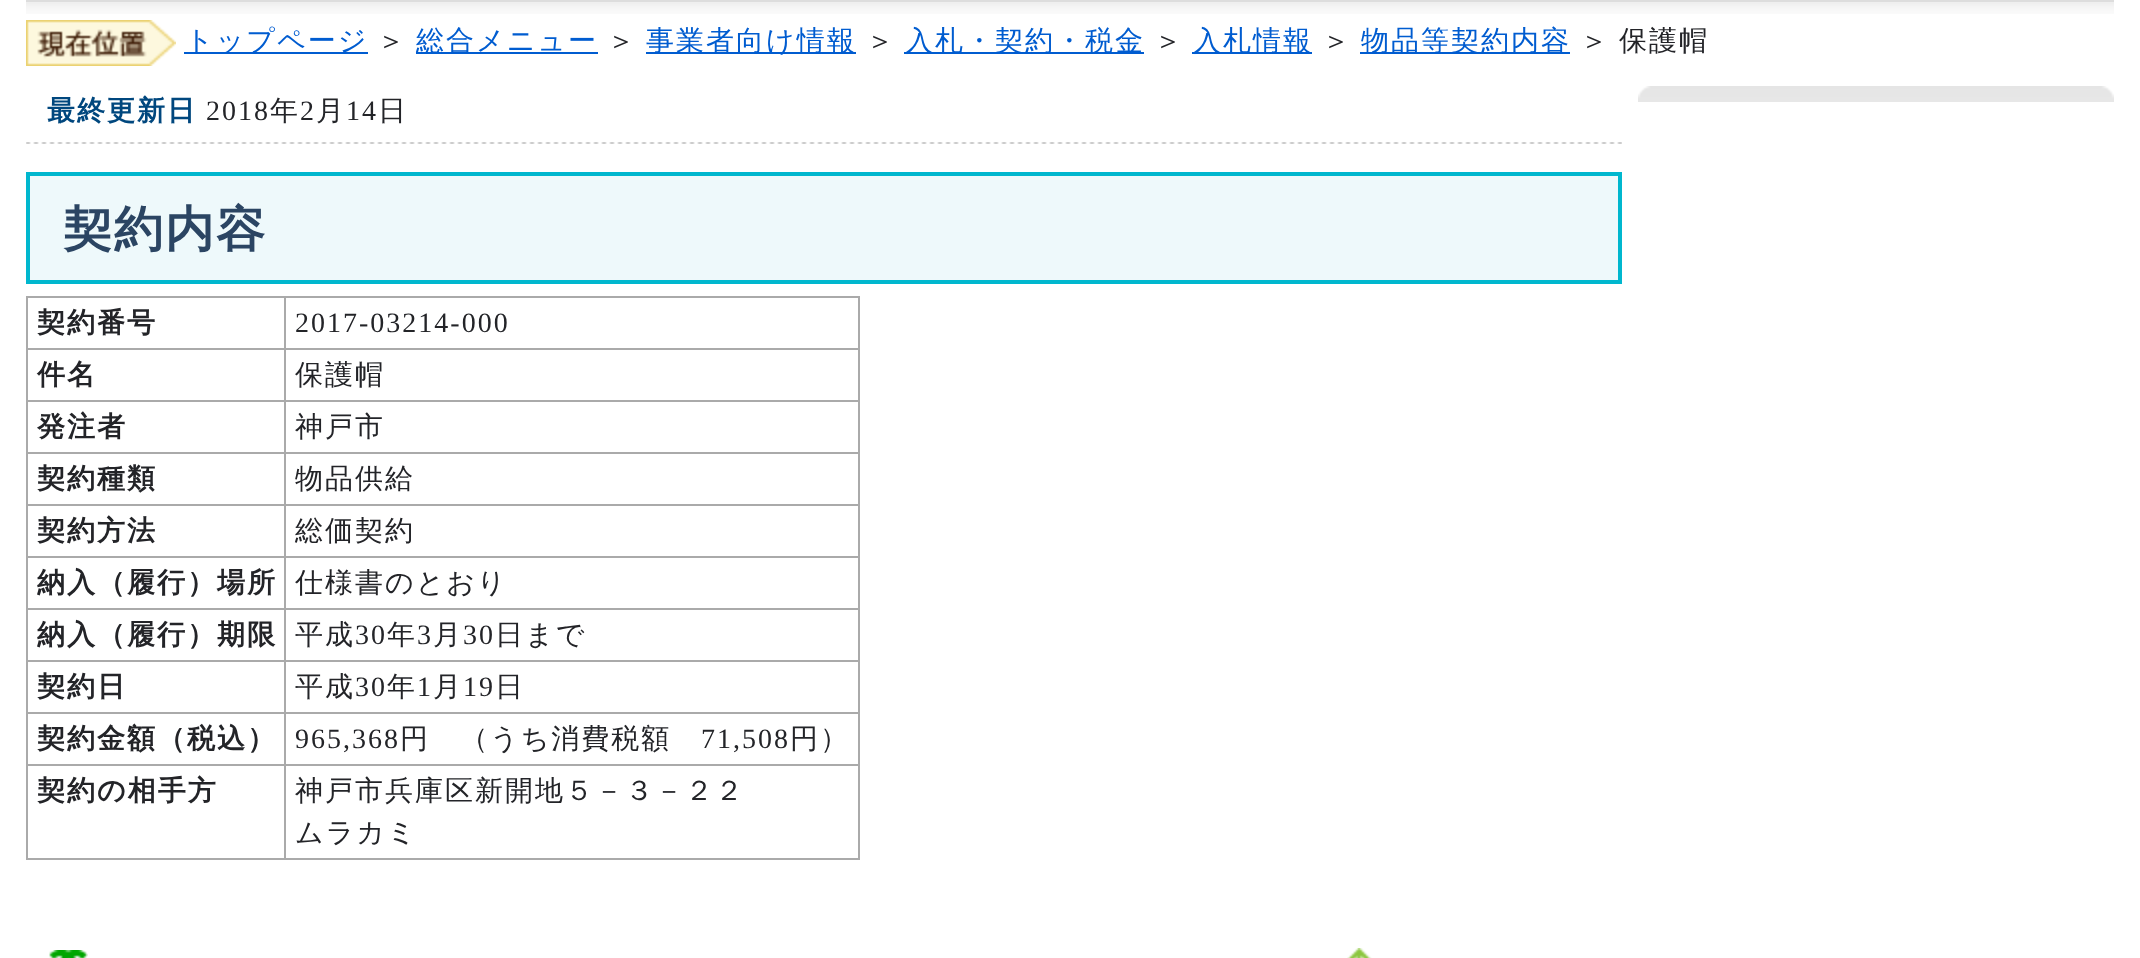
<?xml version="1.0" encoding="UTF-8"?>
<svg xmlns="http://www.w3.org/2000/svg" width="2140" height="958">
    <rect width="100%" height="100%" fill="#FFFFFF"/>
    <image x="26" y="2" width="2088" height="12" href="img_01.png"/>
    <rect x="26" y="0" width="2088" height="2" fill="#DDDDDD"/>
    <image x="26" y="20" width="150" height="46" href="img_02.png"/>
    <rect x="184" y="52" width="184" height="2" fill="#005CD0"/>
    <text x="185" y="50" font-family="WenQuanYi Zen Hei" font-size="28" font-weight="500" letter-spacing="2" fill="#005CD0">トップページ</text>
    <text x="377" y="50" font-family="WenQuanYi Zen Hei" font-size="28" font-weight="500" letter-spacing="2" fill="#232428">＞</text>
    <rect x="416" y="52" width="182" height="2" fill="#005CD0"/>
    <text x="416" y="50" font-family="WenQuanYi Zen Hei" font-size="28" font-weight="500" letter-spacing="2" fill="#005CD0">総合メニュー</text>
    <text x="607" y="50" font-family="WenQuanYi Zen Hei" font-size="28" font-weight="500" letter-spacing="2" fill="#232428">＞</text>
    <rect x="646" y="52" width="210" height="2" fill="#005CD0"/>
    <text x="646" y="50" font-family="WenQuanYi Zen Hei" font-size="28" font-weight="500" letter-spacing="2" fill="#005CD0">事業者向け情報</text>
    <text x="866" y="50" font-family="WenQuanYi Zen Hei" font-size="28" font-weight="500" letter-spacing="2" fill="#232428">＞</text>
    <rect x="904" y="52" width="240" height="2" fill="#005CD0"/>
    <text x="905" y="50" font-family="WenQuanYi Zen Hei" font-size="28" font-weight="500" letter-spacing="2" fill="#005CD0">入札・契約・税金</text>
    <text x="1154" y="50" font-family="WenQuanYi Zen Hei" font-size="28" font-weight="500" letter-spacing="2" fill="#232428">＞</text>
    <rect x="1192" y="52" width="120" height="2" fill="#005CD0"/>
    <text x="1193" y="50" font-family="WenQuanYi Zen Hei" font-size="28" font-weight="500" letter-spacing="2" fill="#005CD0">入札情報</text>
    <text x="1322" y="50" font-family="WenQuanYi Zen Hei" font-size="28" font-weight="500" letter-spacing="2" fill="#232428">＞</text>
    <rect x="1360" y="52" width="210" height="2" fill="#005CD0"/>
    <text x="1361" y="50" font-family="WenQuanYi Zen Hei" font-size="28" font-weight="500" letter-spacing="2" fill="#005CD0">物品等契約内容</text>
    <text x="1580" y="50" font-family="WenQuanYi Zen Hei" font-size="28" font-weight="500" letter-spacing="2" fill="#232428">＞</text>
    <text x="1619" y="50" font-family="WenQuanYi Zen Hei" font-size="28" font-weight="500" letter-spacing="2" fill="#232428">保護帽</text>
    <image x="1638" y="86" width="476" height="16" href="img_03.png"/>
    <image x="26" y="142" width="1596" height="2" href="img_04.png"/>
    <text x="47" y="120" font-family="WenQuanYi Zen Hei" font-size="28" font-weight="700" letter-spacing="2" fill="#00477E">最終更新日</text>
    <text x="206" y="120" font-family="Liberation Serif" font-size="28" letter-spacing="2" fill="#232428">2018</text>
    <text x="270" y="120" font-family="WenQuanYi Zen Hei" font-size="28" font-weight="500" letter-spacing="2" fill="#232428">年</text>
    <text x="300" y="120" font-family="Liberation Serif" font-size="28" letter-spacing="2" fill="#232428">2</text>
    <text x="316" y="120" font-family="WenQuanYi Zen Hei" font-size="28" font-weight="500" letter-spacing="2" fill="#232428">月</text>
    <text x="346" y="120" font-family="Liberation Serif" font-size="28" letter-spacing="2" fill="#232428">14</text>
    <text x="378" y="120" font-family="WenQuanYi Zen Hei" font-size="28" font-weight="500" letter-spacing="2" fill="#232428">日</text>
    <rect x="28" y="174" width="1592" height="108" fill="#EEF9FB" stroke="#00B7CE" stroke-width="4"/>
    <text x="63" y="246" font-family="WenQuanYi Zen Hei" font-size="49" font-weight="700" letter-spacing="2" fill="#2B4563">契約内容</text>
    <rect x="26" y="296" width="834" height="2" fill="#AAAAAA"/>
    <rect x="858" y="296" width="2" height="564" fill="#AAAAAA"/>
    <rect x="26" y="858" width="834" height="2" fill="#AAAAAA"/>
    <rect x="26" y="296" width="2" height="564" fill="#AAAAAA"/>
    <text x="37" y="332" font-family="WenQuanYi Zen Hei" font-size="28" font-weight="700" letter-spacing="2" fill="#232428">契約番号</text>
    <rect x="284" y="348" width="576" height="2" fill="#AAAAAA"/>
    <rect x="284" y="400" width="576" height="2" fill="#AAAAAA"/>
    <rect x="284" y="452" width="576" height="2" fill="#AAAAAA"/>
    <rect x="284" y="504" width="576" height="2" fill="#AAAAAA"/>
    <rect x="284" y="556" width="576" height="2" fill="#AAAAAA"/>
    <rect x="284" y="608" width="576" height="2" fill="#AAAAAA"/>
    <rect x="284" y="660" width="576" height="2" fill="#AAAAAA"/>
    <rect x="284" y="712" width="576" height="2" fill="#AAAAAA"/>
    <rect x="284" y="764" width="576" height="2" fill="#AAAAAA"/>
    <rect x="284" y="764" width="2" height="96" fill="#AAAAAA"/>
    <rect x="26" y="764" width="260" height="2" fill="#AAAAAA"/>
    <rect x="284" y="712" width="2" height="54" fill="#AAAAAA"/>
    <rect x="26" y="712" width="260" height="2" fill="#AAAAAA"/>
    <rect x="284" y="660" width="2" height="54" fill="#AAAAAA"/>
    <rect x="26" y="660" width="260" height="2" fill="#AAAAAA"/>
    <rect x="284" y="608" width="2" height="54" fill="#AAAAAA"/>
    <rect x="26" y="608" width="260" height="2" fill="#AAAAAA"/>
    <rect x="284" y="556" width="2" height="54" fill="#AAAAAA"/>
    <rect x="26" y="556" width="260" height="2" fill="#AAAAAA"/>
    <rect x="284" y="504" width="2" height="54" fill="#AAAAAA"/>
    <rect x="26" y="504" width="260" height="2" fill="#AAAAAA"/>
    <rect x="284" y="452" width="2" height="54" fill="#AAAAAA"/>
    <rect x="26" y="452" width="260" height="2" fill="#AAAAAA"/>
    <rect x="284" y="400" width="2" height="54" fill="#AAAAAA"/>
    <rect x="26" y="400" width="260" height="2" fill="#AAAAAA"/>
    <rect x="284" y="348" width="2" height="54" fill="#AAAAAA"/>
    <rect x="26" y="348" width="260" height="2" fill="#AAAAAA"/>
    <rect x="284" y="296" width="2" height="54" fill="#AAAAAA"/>
    <text x="295" y="332" font-family="Liberation Serif" font-size="28" letter-spacing="2" fill="#232428">2017-03214-000</text>
    <text x="37" y="384" font-family="WenQuanYi Zen Hei" font-size="28" font-weight="700" letter-spacing="2" fill="#232428">件名</text>
    <text x="295" y="384" font-family="WenQuanYi Zen Hei" font-size="28" font-weight="500" letter-spacing="2" fill="#232428">保護帽</text>
    <text x="37" y="436" font-family="WenQuanYi Zen Hei" font-size="28" font-weight="700" letter-spacing="2" fill="#232428">発注者</text>
    <text x="295" y="436" font-family="WenQuanYi Zen Hei" font-size="28" font-weight="500" letter-spacing="2" fill="#232428">神戸市</text>
    <text x="37" y="488" font-family="WenQuanYi Zen Hei" font-size="28" font-weight="700" letter-spacing="2" fill="#232428">契約種類</text>
    <text x="295" y="488" font-family="WenQuanYi Zen Hei" font-size="28" font-weight="500" letter-spacing="2" fill="#232428">物品供給</text>
    <text x="37" y="540" font-family="WenQuanYi Zen Hei" font-size="28" font-weight="700" letter-spacing="2" fill="#232428">契約方法</text>
    <text x="295" y="540" font-family="WenQuanYi Zen Hei" font-size="28" font-weight="500" letter-spacing="2" fill="#232428">総価契約</text>
    <text x="37" y="592" font-family="WenQuanYi Zen Hei" font-size="28" font-weight="700" letter-spacing="2" fill="#232428">納入（履行）場所</text>
    <text x="295" y="592" font-family="WenQuanYi Zen Hei" font-size="28" font-weight="500" letter-spacing="2" fill="#232428">仕様書のとおり</text>
    <text x="37" y="644" font-family="WenQuanYi Zen Hei" font-size="28" font-weight="700" letter-spacing="2" fill="#232428">納入（履行）期限</text>
    <text x="295" y="644" font-family="WenQuanYi Zen Hei" font-size="28" font-weight="500" letter-spacing="2" fill="#232428">平成</text>
    <text x="355" y="644" font-family="Liberation Serif" font-size="28" letter-spacing="2" fill="#232428">30</text>
    <text x="387" y="644" font-family="WenQuanYi Zen Hei" font-size="28" font-weight="500" letter-spacing="2" fill="#232428">年</text>
    <text x="417" y="644" font-family="Liberation Serif" font-size="28" letter-spacing="2" fill="#232428">3</text>
    <text x="433" y="644" font-family="WenQuanYi Zen Hei" font-size="28" font-weight="500" letter-spacing="2" fill="#232428">月</text>
    <text x="463" y="644" font-family="Liberation Serif" font-size="28" letter-spacing="2" fill="#232428">30</text>
    <text x="495" y="644" font-family="WenQuanYi Zen Hei" font-size="28" font-weight="500" letter-spacing="2" fill="#232428">日まで</text>
    <text x="37" y="696" font-family="WenQuanYi Zen Hei" font-size="28" font-weight="700" letter-spacing="2" fill="#232428">契約日</text>
    <text x="295" y="696" font-family="WenQuanYi Zen Hei" font-size="28" font-weight="500" letter-spacing="2" fill="#232428">平成</text>
    <text x="355" y="696" font-family="Liberation Serif" font-size="28" letter-spacing="2" fill="#232428">30</text>
    <text x="387" y="696" font-family="WenQuanYi Zen Hei" font-size="28" font-weight="500" letter-spacing="2" fill="#232428">年</text>
    <text x="417" y="696" font-family="Liberation Serif" font-size="28" letter-spacing="2" fill="#232428">1</text>
    <text x="433" y="696" font-family="WenQuanYi Zen Hei" font-size="28" font-weight="500" letter-spacing="2" fill="#232428">月</text>
    <text x="463" y="696" font-family="Liberation Serif" font-size="28" letter-spacing="2" fill="#232428">19</text>
    <text x="495" y="696" font-family="WenQuanYi Zen Hei" font-size="28" font-weight="500" letter-spacing="2" fill="#232428">日</text>
    <text x="37" y="748" font-family="WenQuanYi Zen Hei" font-size="28" font-weight="700" letter-spacing="2" fill="#232428">契約金額（税込）</text>
    <text x="295" y="748" font-family="Liberation Serif" font-size="28" letter-spacing="2" fill="#232428">965,368</text>
    <text x="400" y="748" font-family="WenQuanYi Zen Hei" font-size="28" font-weight="500" letter-spacing="2" fill="#232428">円　（うち消費税額</text>
    <text x="701" y="748" font-family="Liberation Serif" font-size="28" letter-spacing="2" fill="#232428">71,508</text>
    <text x="790" y="748" font-family="WenQuanYi Zen Hei" font-size="28" font-weight="500" letter-spacing="2" fill="#232428">円）</text>
    <text x="37" y="800" font-family="WenQuanYi Zen Hei" font-size="28" font-weight="700" letter-spacing="2" fill="#232428">契約の相手方</text>
    <text font-family="WenQuanYi Zen Hei" font-size="28" font-weight="500" letter-spacing="2" fill="#232428">
        <tspan x="295" y="800">神戸市兵庫区新開地５－３－２２</tspan>
        <tspan x="295" y="842">ムラカミ</tspan>
    </text>
    <image x="49" y="950" width="39" height="8" href="img_05.png"/>
    <image x="1347" y="948" width="25" height="10" href="img_06.png"/>
</svg>
